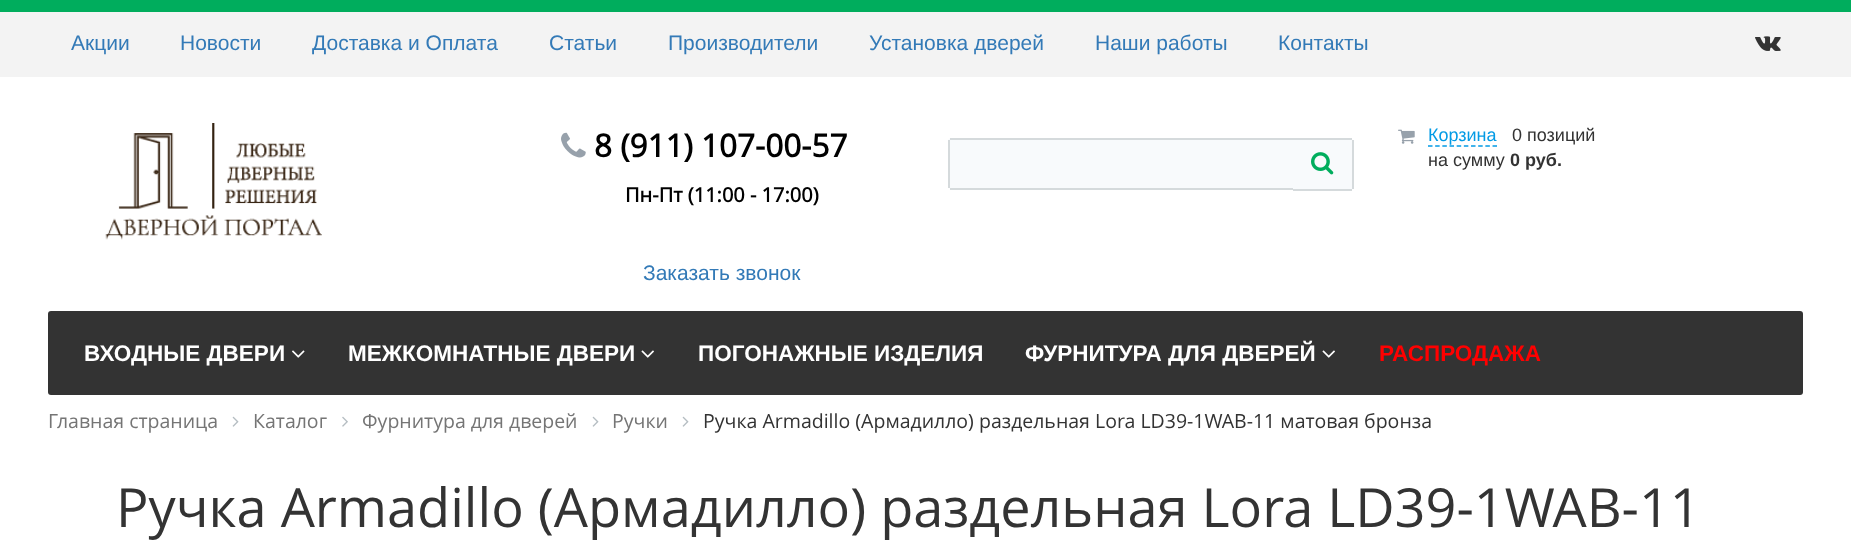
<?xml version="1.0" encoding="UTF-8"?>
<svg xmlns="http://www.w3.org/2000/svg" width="1851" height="542">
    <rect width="100%" height="100%" fill="#FFFFFF"/>
    <rect x="0" y="0" width="1851" height="12" fill="#00AD5D"/>
    <rect x="0" y="12" width="1851" height="65" fill="#F3F3F3"/>
    <text x="71" y="50" font-family="Liberation Sans" font-size="21" fill="#337AB7">Акции</text>
    <text x="180" y="50" font-family="Liberation Sans" font-size="21" fill="#337AB7">Новости</text>
    <text x="312" y="50" font-family="Liberation Sans" font-size="21" fill="#337AB7">Доставка и Оплата</text>
    <text x="549" y="50" font-family="Liberation Sans" font-size="21" fill="#337AB7">Статьи</text>
    <text x="668" y="50" font-family="Liberation Sans" font-size="21" fill="#337AB7">Производители</text>
    <text x="869" y="50" font-family="Liberation Sans" font-size="21" fill="#337AB7">Установка дверей</text>
    <text x="1095" y="50" font-family="Liberation Sans" font-size="21" fill="#337AB7">Наши работы</text>
    <text x="1278" y="50" font-family="Liberation Sans" font-size="21" fill="#337AB7">Контакты</text>
    <image x="1755" y="36" width="26" height="15" href="img_01.png"/>
    <image x="105" y="123" width="217" height="117" href="img_02.png"/>
    <image x="561" y="132" width="25" height="26" href="img_03.png"/>
    <text x="594" y="157" font-family="Open Sans" font-size="31.5" font-weight="700" fill="#000000">8 (911) 107-00-57</text>
    <text x="625" y="202" font-family="Open Sans" font-size="20" font-weight="700" fill="#000000">Пн-Пт (11:00 - 17:00)</text>
    <text x="643" y="280" font-family="Liberation Sans" font-size="21" fill="#337AB7">Заказать звонок</text>
    <path d="M 951 138 H 1293 V 189 H 951 C 949.5 189 948 187.5 948 186 V 141 C 948 139.5 949.5 138 951 138 Z" fill="#F8FAFC"/>
    <rect x="950" y="138" width="343" height="2" fill="#D5DADC"/>
    <rect x="950" y="188" width="343" height="2" fill="#D5DADC"/>
    <rect x="948" y="140" width="2" height="48" fill="#D5DADC"/>
    <path d="M 1293 138 H 1350 C 1351.5 138 1353 139.5 1353 141 V 188 C 1353 189.5 1351.5 191 1350 191 H 1293 Z" fill="#F8FAFC"/>
    <rect x="1293" y="138" width="59" height="2" fill="#D5DADC"/>
    <rect x="1352" y="140" width="2" height="49" fill="#D5DADC"/>
    <rect x="1293" y="189" width="59" height="2" fill="#D5DADC"/>
    <image x="1311" y="152" width="23" height="23" href="img_04.png"/>
    <image x="1398" y="129" width="17" height="15" href="img_05.png"/>
    <text x="1428" y="141" font-family="Liberation Sans" font-size="18" fill="#039BE5">Корзина</text>
    <path d="M 1428 146 H 1497" fill="none" stroke="#039BE5" stroke-width="1.5" stroke-dasharray="4.5 2.67"/>
    <text x="1512" y="141" font-family="Liberation Sans" font-size="18" fill="#333333">0 позиций</text>
    <text x="1428" y="166" font-family="Liberation Sans" font-size="18" fill="#333333">на сумму</text>
    <text x="1510" y="166" font-family="Liberation Sans" font-size="18" font-weight="700" fill="#333333">0 руб.</text>
    <rect x="48" y="311" width="1755" height="84" rx="3" fill="#333333"/>
    <text x="84" y="361" font-family="Liberation Sans" font-size="22.5" font-weight="700" fill="#FFFFFF">ВХОДНЫЕ ДВЕРИ</text>
    <image x="292" y="350" width="13" height="8" href="img_06.png"/>
    <text x="348" y="361" font-family="Liberation Sans" font-size="22.5" font-weight="700" fill="#FFFFFF">МЕЖКОМНАТНЫЕ ДВЕРИ</text>
    <image x="641" y="350" width="13" height="8" href="img_07.png"/>
    <text x="698" y="361" font-family="Liberation Sans" font-size="22.5" font-weight="700" fill="#FFFFFF">ПОГОНАЖНЫЕ ИЗДЕЛИЯ</text>
    <text x="1025" y="361" font-family="Liberation Sans" font-size="22.5" font-weight="700" fill="#FFFFFF">ФУРНИТУРА ДЛЯ ДВЕРЕЙ</text>
    <image x="1322" y="350" width="13" height="8" href="img_07.png"/>
    <text x="1379" y="361" font-family="Liberation Sans" font-size="22.5" font-weight="700" fill="#FF0000">РАСПРОДАЖА</text>
    <text x="48" y="428" font-family="Open Sans" font-size="19.5" fill="#757575">Главная страница</text>
    <image x="232" y="416" width="7" height="11" href="img_08.png"/>
    <text x="253" y="428" font-family="Open Sans" font-size="19.5" fill="#757575">Каталог</text>
    <image x="342" y="416" width="6" height="11" href="img_09.png"/>
    <text x="362" y="428" font-family="Open Sans" font-size="19.5" fill="#757575">Фурнитура для дверей</text>
    <image x="592" y="416" width="7" height="11" href="img_08.png"/>
    <text x="612" y="428" font-family="Open Sans" font-size="19.5" fill="#757575">Ручки</text>
    <image x="682" y="416" width="7" height="11" href="img_08.png"/>
    <text x="703" y="428" font-family="Open Sans" font-size="19.5" fill="#333333">Ручка Armadillo (Армадилло) раздельная Lora LD39-1WAB-11 матовая бронза</text>
    <text x="116" y="527" font-family="Open Sans" font-size="54" fill="#333333">Ручка Armadillo (Армадилло) раздельная Lora LD39-1WAB-11</text>
</svg>
